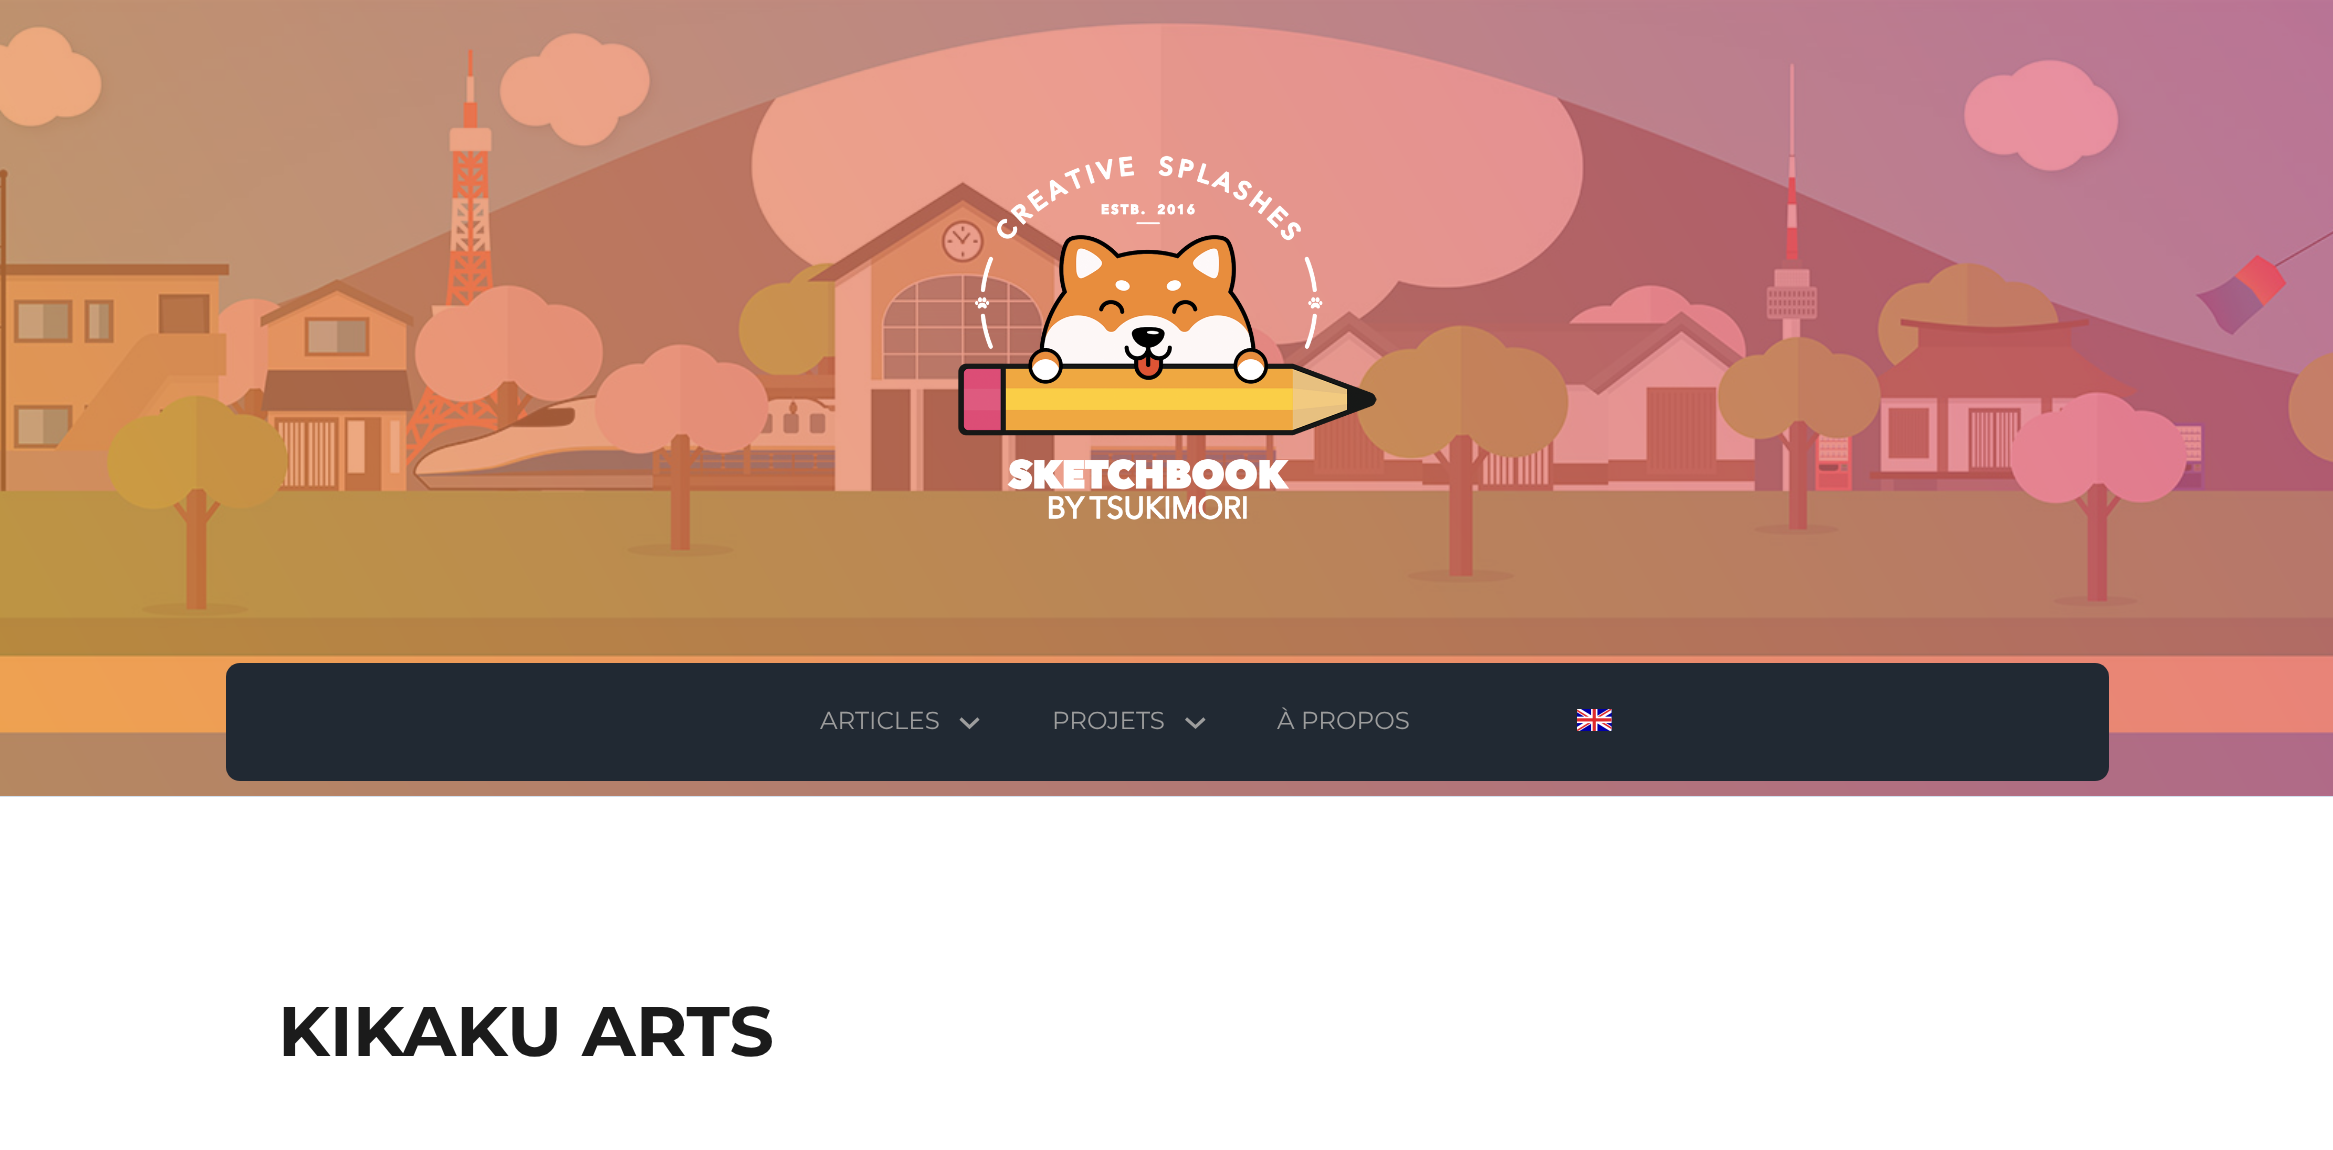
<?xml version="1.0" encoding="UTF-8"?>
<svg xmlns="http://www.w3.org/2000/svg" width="2333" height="1150">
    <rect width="100%" height="100%" fill="#FFFFFF"/>
    <image x="0" y="0" width="2333" height="797" href="img_01.png"/>
    <image x="958" y="155" width="419" height="365" href="img_02.png"/>
    <rect x="226" y="663" width="1883" height="118" rx="14" fill="#212933"/>
    <text x="820" y="729" font-family="Montserrat" font-size="24.5" fill="#9D9D9D">ARTICLES</text>
    <path d="M 960.5 718.5 L 969.5 727 L 978.5 718.5" fill="none" stroke="#9D9D9D" stroke-width="3.1"/>
    <text x="1052" y="729" font-family="Montserrat" font-size="24.5" fill="#9D9D9D">PROJETS</text>
    <path d="M 1186 718.5 L 1195.5 727 L 1204.5 718.5" fill="none" stroke="#9D9D9D" stroke-width="3.1"/>
    <text x="1277" y="729" font-family="Montserrat" font-size="24.5" fill="#9D9D9D">À PROPOS</text>
    <image x="1577" y="709" width="35" height="22" href="img_03.png"/>
    <text x="278" y="1056" font-family="Montserrat" font-size="70" font-weight="700" fill="#1B1B1B">KIKAKU ARTS</text>
</svg>
